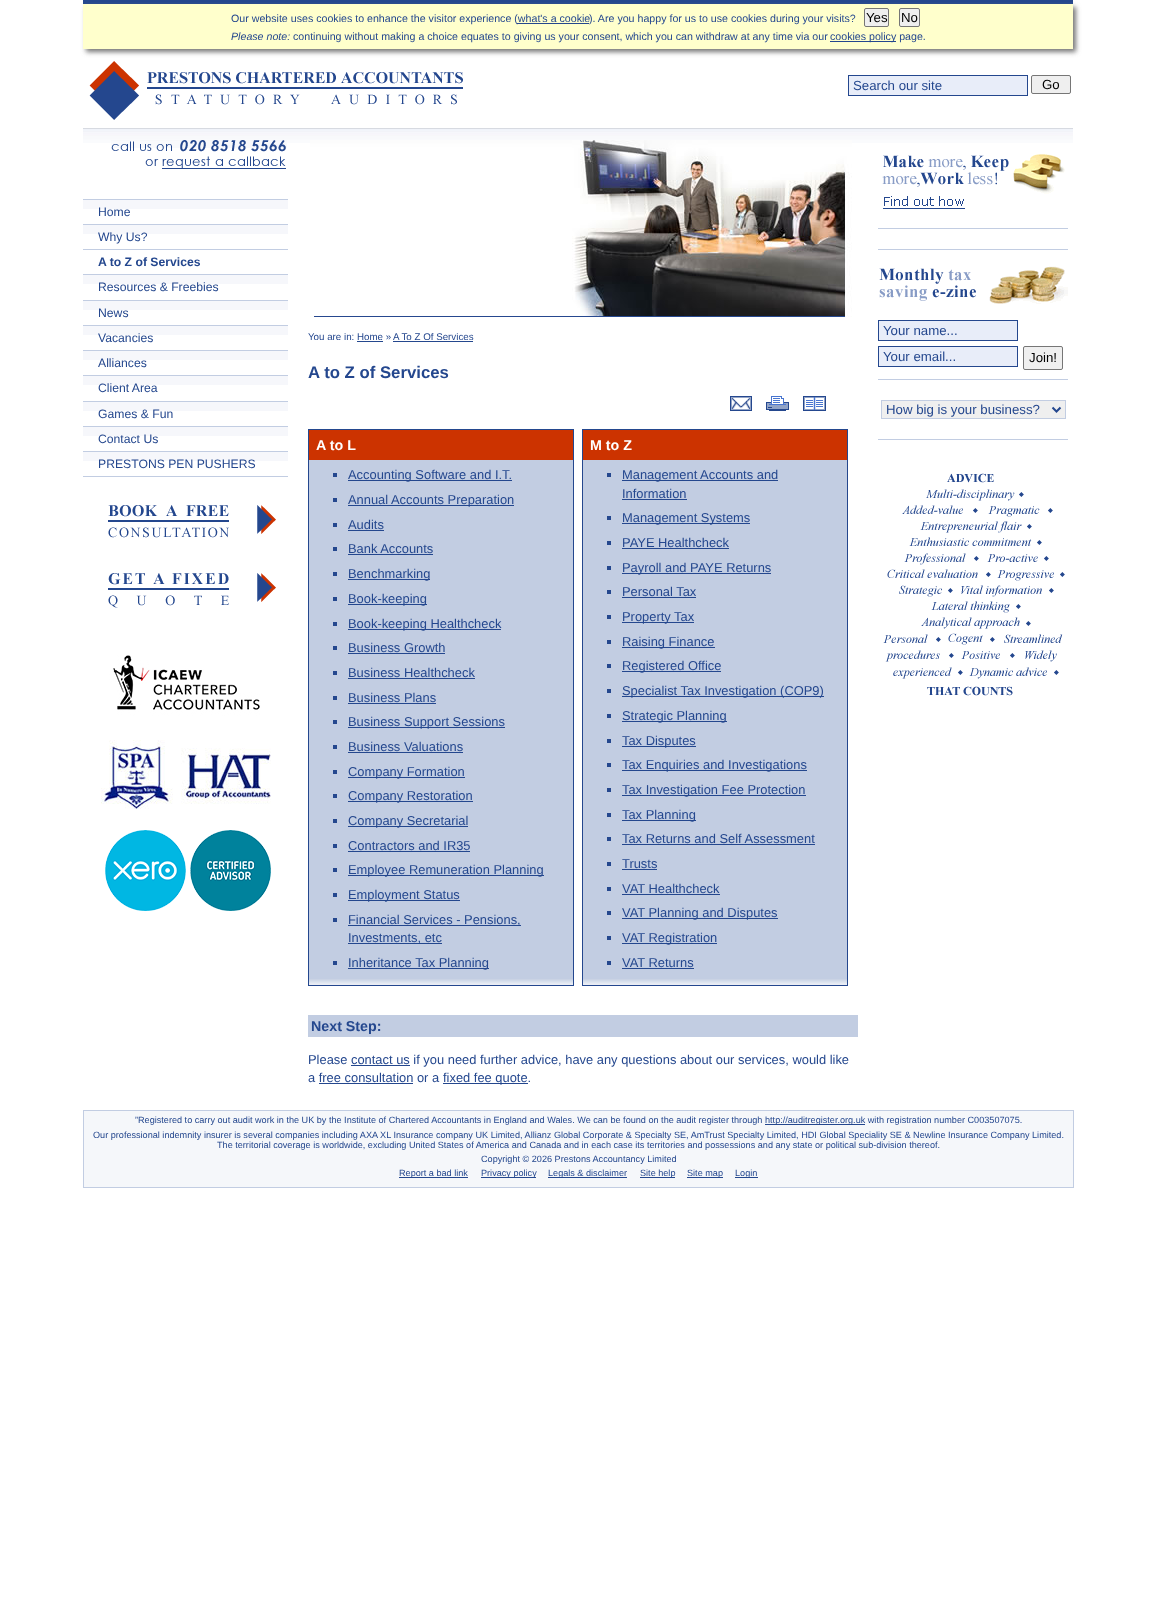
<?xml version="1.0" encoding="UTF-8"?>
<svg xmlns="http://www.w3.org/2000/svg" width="1156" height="1613">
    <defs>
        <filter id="blur1" x="-50%" y="-200%" width="200%" height="500%"><feGaussianBlur stdDeviation="2.5"/></filter>
    </defs>
    <rect width="100%" height="100%" fill="#FFFFFF"/>
    <rect x="83" y="0" width="990" height="4" fill="#24478E"/>
    <rect x="86" y="7" width="990" height="45" fill="#777777" filter="url(#blur1)"/>
    <rect x="83" y="4" width="990" height="45" fill="#FFFFCC"/>
    <text x="231" y="22" font-family="Liberation Sans" font-size="10.65" fill="#24478E">Our website uses cookies to enhance the visitor experience (what's a cookie</text>
    <text x="589" y="22" font-family="Liberation Sans" font-size="10.65" fill="#24478E">). Are you happy for us to use cookies during your visits?</text>
    <rect x="864.5" y="8.5" width="24" height="18" rx="1.5" fill="#EFEFEF" stroke="#767676"/>
    <text x="866" y="22" font-family="Liberation Sans" font-size="13.25" fill="#000000">Yes</text>
    <rect x="899.5" y="8.5" width="20" height="18" rx="1.5" fill="#EFEFEF" stroke="#767676"/>
    <text x="901" y="22" font-family="Liberation Sans" font-size="13.25" fill="#000000">No</text>
    <rect x="517" y="23" width="72" height="1" fill="#24478E"/>
    <text x="231" y="40" font-family="Liberation Sans" font-size="10.65" font-style="italic" fill="#24478E">Please note:</text>
    <text x="293" y="40" font-family="Liberation Sans" font-size="10.65" fill="#24478E">continuing without making a choice equates to giving us your consent, which you can withdraw at any time via our</text>
    <rect x="830" y="41" width="66" height="1" fill="#24478E"/>
    <text x="830" y="40" font-family="Liberation Sans" font-size="10.65" fill="#24478E">cookies policy page.</text>
    <image x="89" y="61" width="374" height="59" href="img_01.png"/>
    <rect x="848.5" y="75.5" width="179" height="20" fill="#E8EDF9" stroke="#24478E"/>
    <text x="853" y="90" font-family="Liberation Sans" font-size="13.25" fill="#24478E">Search our site</text>
    <rect x="1031.5" y="75.5" width="39" height="18" rx="1.5" fill="#EFEFEF" stroke="#767676"/>
    <text x="1042" y="89" font-family="Liberation Sans" font-size="13.25" fill="#000000">Go</text>
    <image x="83" y="128" width="990" height="15" href="img_02.png"/>
    <image x="111" y="140" width="176" height="29" href="img_03.png"/>
    <rect x="83" y="200" width="205" height="9" fill="#F6F7FB"/>
    <rect x="83" y="199" width="205" height="1" fill="#C2CDE2"/>
    <text x="98" y="216" font-family="Liberation Sans" font-size="12.2" fill="#24478E">Home</text>
    <rect x="83" y="225" width="205" height="9" fill="#F6F7FB"/>
    <rect x="83" y="224" width="205" height="1" fill="#C2CDE2"/>
    <text x="98" y="241" font-family="Liberation Sans" font-size="12.2" fill="#24478E">Why Us?</text>
    <rect x="83" y="249" width="205" height="1" fill="#C2CDE2"/>
    <text x="98" y="266" font-family="Liberation Sans" font-size="12.2" font-weight="700" fill="#24478E">A to Z of Services</text>
    <rect x="83" y="275" width="205" height="9" fill="#F6F7FB"/>
    <rect x="83" y="274" width="205" height="1" fill="#C2CDE2"/>
    <text x="98" y="291" font-family="Liberation Sans" font-size="12.2" fill="#24478E">Resources &amp; Freebies</text>
    <rect x="83" y="301" width="205" height="9" fill="#F6F7FB"/>
    <rect x="83" y="300" width="205" height="1" fill="#C2CDE2"/>
    <text x="98" y="317" font-family="Liberation Sans" font-size="12.2" fill="#24478E">News</text>
    <rect x="83" y="326" width="205" height="9" fill="#F6F7FB"/>
    <rect x="83" y="325" width="205" height="1" fill="#C2CDE2"/>
    <text x="98" y="342" font-family="Liberation Sans" font-size="12.2" fill="#24478E">Vacancies</text>
    <rect x="83" y="351" width="205" height="9" fill="#F6F7FB"/>
    <rect x="83" y="350" width="205" height="1" fill="#C2CDE2"/>
    <text x="98" y="367" font-family="Liberation Sans" font-size="12.2" fill="#24478E">Alliances</text>
    <rect x="83" y="376" width="205" height="9" fill="#F6F7FB"/>
    <rect x="83" y="375" width="205" height="1" fill="#C2CDE2"/>
    <text x="98" y="392" font-family="Liberation Sans" font-size="12.2" fill="#24478E">Client Area</text>
    <rect x="83" y="402" width="205" height="9" fill="#F6F7FB"/>
    <rect x="83" y="401" width="205" height="1" fill="#C2CDE2"/>
    <text x="98" y="418" font-family="Liberation Sans" font-size="12.2" fill="#24478E">Games &amp; Fun</text>
    <rect x="83" y="427" width="205" height="9" fill="#F6F7FB"/>
    <rect x="83" y="426" width="205" height="1" fill="#C2CDE2"/>
    <text x="98" y="443" font-family="Liberation Sans" font-size="12.2" fill="#24478E">Contact Us</text>
    <rect x="83" y="452" width="205" height="9" fill="#F6F7FB"/>
    <rect x="83" y="451" width="205" height="1" fill="#C2CDE2"/>
    <rect x="83" y="476" width="205" height="1" fill="#C2CDE2"/>
    <text x="98" y="468" font-family="Liberation Sans" font-size="12.2" fill="#24478E">PRESTONS PEN PUSHERS</text>
    <image x="108" y="505" width="168" height="33" href="img_04.png"/>
    <image x="108" y="573" width="168" height="35" href="img_05.png"/>
    <image x="101" y="655" width="170" height="154" href="img_06.png"/>
    <image x="105" y="830" width="166" height="81" href="img_07.png"/>
    <image x="310" y="140" width="542" height="177" href="img_08.png"/>
    <text x="308" y="340" font-family="Liberation Sans" font-size="9.75" fill="#24478E">You are in: Home »</text>
    <text x="393" y="340" font-family="Liberation Sans" font-size="9.75" fill="#24478E">A To Z Of Services</text>
    <rect x="393" y="341" width="80" height="1" fill="#24478E"/>
    <rect x="357" y="341" width="26" height="1" fill="#24478E"/>
    <text x="308" y="378" font-family="Liberation Sans" font-size="16.75" font-weight="700" fill="#24478E">A to Z of Services</text>
    <image x="730" y="396" width="22" height="15" href="img_09.png"/>
    <image x="766" y="396" width="23" height="15" href="img_10.png"/>
    <image x="803" y="396" width="23" height="15" href="img_11.png"/>
    <rect x="309" y="460" width="264" height="519" fill="#C2CDE2"/>
    <image x="309" y="979" width="264" height="6" href="img_12.png"/>
    <rect x="308.5" y="429.5" width="265" height="556" fill="none" stroke="#24478E"/>
    <rect x="309" y="430" width="264" height="30" fill="#CC3300"/>
    <text x="316" y="450" font-family="Liberation Sans" font-size="14.25" font-weight="700" fill="#FFFFFF">A to L</text>
    <rect x="333" y="473" width="4" height="4" fill="#24478E"/>
    <rect x="348" y="480" width="164" height="1" fill="#24478E"/>
    <text x="348" y="479" font-family="Liberation Sans" font-size="12.9" fill="#24478E">Accounting Software and I.T.</text>
    <rect x="333" y="498" width="4" height="4" fill="#24478E"/>
    <rect x="348" y="505" width="166" height="1" fill="#24478E"/>
    <text x="348" y="504" font-family="Liberation Sans" font-size="12.9" fill="#24478E">Annual Accounts Preparation</text>
    <rect x="333" y="523" width="4" height="4" fill="#24478E"/>
    <text x="348" y="529" font-family="Liberation Sans" font-size="12.9" fill="#24478E">Audits</text>
    <rect x="348" y="530" width="36" height="1" fill="#24478E"/>
    <rect x="333" y="547" width="4" height="4" fill="#24478E"/>
    <text x="348" y="553" font-family="Liberation Sans" font-size="12.9" fill="#24478E">Bank Accounts</text>
    <rect x="348" y="554" width="85" height="1" fill="#24478E"/>
    <rect x="333" y="572" width="4" height="4" fill="#24478E"/>
    <rect x="348" y="579" width="82" height="1" fill="#24478E"/>
    <text x="348" y="578" font-family="Liberation Sans" font-size="12.9" fill="#24478E">Benchmarking</text>
    <rect x="333" y="597" width="4" height="4" fill="#24478E"/>
    <rect x="348" y="604" width="79" height="1" fill="#24478E"/>
    <text x="348" y="603" font-family="Liberation Sans" font-size="12.9" fill="#24478E">Book-keeping</text>
    <rect x="333" y="622" width="4" height="4" fill="#24478E"/>
    <rect x="348" y="629" width="153" height="1" fill="#24478E"/>
    <text x="348" y="628" font-family="Liberation Sans" font-size="12.9" fill="#24478E">Book-keeping Healthcheck</text>
    <rect x="333" y="646" width="4" height="4" fill="#24478E"/>
    <text x="348" y="652" font-family="Liberation Sans" font-size="12.9" fill="#24478E">Business Growth</text>
    <rect x="348" y="653" width="97" height="1" fill="#24478E"/>
    <rect x="333" y="671" width="4" height="4" fill="#24478E"/>
    <text x="348" y="677" font-family="Liberation Sans" font-size="12.9" fill="#24478E">Business Healthcheck</text>
    <rect x="348" y="678" width="127" height="1" fill="#24478E"/>
    <rect x="333" y="696" width="4" height="4" fill="#24478E"/>
    <text x="348" y="702" font-family="Liberation Sans" font-size="12.9" fill="#24478E">Business Plans</text>
    <rect x="348" y="703" width="88" height="1" fill="#24478E"/>
    <rect x="333" y="720" width="4" height="4" fill="#24478E"/>
    <rect x="348" y="727" width="157" height="1" fill="#24478E"/>
    <text x="348" y="726" font-family="Liberation Sans" font-size="12.9" fill="#24478E">Business Support Sessions</text>
    <rect x="333" y="745" width="4" height="4" fill="#24478E"/>
    <text x="348" y="751" font-family="Liberation Sans" font-size="12.9" fill="#24478E">Business Valuations</text>
    <rect x="348" y="752" width="115" height="1" fill="#24478E"/>
    <rect x="333" y="770" width="4" height="4" fill="#24478E"/>
    <rect x="348" y="777" width="117" height="1" fill="#24478E"/>
    <text x="348" y="776" font-family="Liberation Sans" font-size="12.9" fill="#24478E">Company Formation</text>
    <rect x="333" y="794" width="4" height="4" fill="#24478E"/>
    <rect x="348" y="801" width="125" height="1" fill="#24478E"/>
    <text x="348" y="800" font-family="Liberation Sans" font-size="12.9" fill="#24478E">Company Restoration</text>
    <rect x="333" y="819" width="4" height="4" fill="#24478E"/>
    <rect x="348" y="826" width="120" height="1" fill="#24478E"/>
    <text x="348" y="825" font-family="Liberation Sans" font-size="12.9" fill="#24478E">Company Secretarial</text>
    <rect x="333" y="844" width="4" height="4" fill="#24478E"/>
    <text x="348" y="850" font-family="Liberation Sans" font-size="12.9" fill="#24478E">Contractors and IR35</text>
    <rect x="348" y="851" width="122" height="1" fill="#24478E"/>
    <rect x="333" y="868" width="4" height="4" fill="#24478E"/>
    <rect x="348" y="875" width="196" height="1" fill="#24478E"/>
    <text x="348" y="874" font-family="Liberation Sans" font-size="12.9" fill="#24478E">Employee Remuneration Planning</text>
    <rect x="333" y="893" width="4" height="4" fill="#24478E"/>
    <rect x="348" y="900" width="112" height="1" fill="#24478E"/>
    <text x="348" y="899" font-family="Liberation Sans" font-size="12.9" fill="#24478E">Employment Status</text>
    <rect x="333" y="918" width="4" height="4" fill="#24478E"/>
    <rect x="348" y="925" width="173" height="1" fill="#24478E"/>
    <text x="348" y="924" font-family="Liberation Sans" font-size="12.9" fill="#24478E">Financial Services - Pensions,</text>
    <rect x="348" y="943" width="94" height="1" fill="#24478E"/>
    <text x="348" y="942" font-family="Liberation Sans" font-size="12.9" fill="#24478E">Investments, etc</text>
    <rect x="333" y="961" width="4" height="4" fill="#24478E"/>
    <rect x="348" y="968" width="141" height="1" fill="#24478E"/>
    <text x="348" y="967" font-family="Liberation Sans" font-size="12.9" fill="#24478E">Inheritance Tax Planning</text>
    <rect x="583" y="460" width="264" height="519" fill="#C2CDE2"/>
    <image x="583" y="979" width="264" height="6" href="img_12.png"/>
    <rect x="582.5" y="429.5" width="265" height="556" fill="none" stroke="#24478E"/>
    <rect x="583" y="430" width="264" height="30" fill="#CC3300"/>
    <text x="590" y="450" font-family="Liberation Sans" font-size="14.25" font-weight="700" fill="#FFFFFF">M to Z</text>
    <rect x="607" y="473" width="4" height="4" fill="#24478E"/>
    <rect x="622" y="480" width="156" height="1" fill="#24478E"/>
    <text font-family="Liberation Sans" font-size="12.9" fill="#24478E">
        <tspan x="622" y="479">Management Accounts and</tspan>
        <tspan x="622" y="498">Information</tspan>
    </text>
    <rect x="622" y="499" width="65" height="1" fill="#24478E"/>
    <rect x="607" y="516" width="4" height="4" fill="#24478E"/>
    <rect x="622" y="523" width="128" height="1" fill="#24478E"/>
    <text x="622" y="522" font-family="Liberation Sans" font-size="12.9" fill="#24478E">Management Systems</text>
    <rect x="607" y="541" width="4" height="4" fill="#24478E"/>
    <text x="622" y="547" font-family="Liberation Sans" font-size="12.9" fill="#24478E">PAYE Healthcheck</text>
    <rect x="622" y="548" width="107" height="1" fill="#24478E"/>
    <rect x="607" y="566" width="4" height="4" fill="#24478E"/>
    <rect x="622" y="573" width="149" height="1" fill="#24478E"/>
    <text x="622" y="572" font-family="Liberation Sans" font-size="12.9" fill="#24478E">Payroll and PAYE Returns</text>
    <rect x="607" y="590" width="4" height="4" fill="#24478E"/>
    <text x="622" y="596" font-family="Liberation Sans" font-size="12.9" fill="#24478E">Personal Tax</text>
    <rect x="622" y="597" width="74" height="1" fill="#24478E"/>
    <rect x="607" y="615" width="4" height="4" fill="#24478E"/>
    <rect x="622" y="622" width="72" height="1" fill="#24478E"/>
    <text x="622" y="621" font-family="Liberation Sans" font-size="12.9" fill="#24478E">Property Tax</text>
    <rect x="607" y="640" width="4" height="4" fill="#24478E"/>
    <rect x="622" y="647" width="93" height="1" fill="#24478E"/>
    <text x="622" y="646" font-family="Liberation Sans" font-size="12.9" fill="#24478E">Raising Finance</text>
    <rect x="607" y="664" width="4" height="4" fill="#24478E"/>
    <rect x="622" y="671" width="99" height="1" fill="#24478E"/>
    <text x="622" y="670" font-family="Liberation Sans" font-size="12.9" fill="#24478E">Registered Office</text>
    <rect x="607" y="689" width="4" height="4" fill="#24478E"/>
    <rect x="622" y="696" width="202" height="1" fill="#24478E"/>
    <text x="622" y="695" font-family="Liberation Sans" font-size="12.9" fill="#24478E">Specialist Tax Investigation (COP9)</text>
    <rect x="607" y="714" width="4" height="4" fill="#24478E"/>
    <rect x="622" y="721" width="105" height="1" fill="#24478E"/>
    <text x="622" y="720" font-family="Liberation Sans" font-size="12.9" fill="#24478E">Strategic Planning</text>
    <rect x="607" y="739" width="4" height="4" fill="#24478E"/>
    <rect x="622" y="746" width="74" height="1" fill="#24478E"/>
    <text x="622" y="745" font-family="Liberation Sans" font-size="12.9" fill="#24478E">Tax Disputes</text>
    <rect x="607" y="763" width="4" height="4" fill="#24478E"/>
    <rect x="622" y="770" width="185" height="1" fill="#24478E"/>
    <text x="622" y="769" font-family="Liberation Sans" font-size="12.9" fill="#24478E">Tax Enquiries and Investigations</text>
    <rect x="607" y="788" width="4" height="4" fill="#24478E"/>
    <rect x="622" y="795" width="184" height="1" fill="#24478E"/>
    <text x="622" y="794" font-family="Liberation Sans" font-size="12.9" fill="#24478E">Tax Investigation Fee Protection</text>
    <rect x="607" y="813" width="4" height="4" fill="#24478E"/>
    <rect x="622" y="820" width="74" height="1" fill="#24478E"/>
    <text x="622" y="819" font-family="Liberation Sans" font-size="12.9" fill="#24478E">Tax Planning</text>
    <rect x="607" y="837" width="4" height="4" fill="#24478E"/>
    <text x="622" y="843" font-family="Liberation Sans" font-size="12.9" fill="#24478E">Tax Returns and Self Assessment</text>
    <rect x="622" y="844" width="193" height="1" fill="#24478E"/>
    <rect x="607" y="862" width="4" height="4" fill="#24478E"/>
    <text x="622" y="868" font-family="Liberation Sans" font-size="12.9" fill="#24478E">Trusts</text>
    <rect x="622" y="869" width="35" height="1" fill="#24478E"/>
    <rect x="607" y="887" width="4" height="4" fill="#24478E"/>
    <text x="622" y="893" font-family="Liberation Sans" font-size="12.9" fill="#24478E">VAT Healthcheck</text>
    <rect x="622" y="894" width="98" height="1" fill="#24478E"/>
    <rect x="607" y="911" width="4" height="4" fill="#24478E"/>
    <rect x="622" y="918" width="156" height="1" fill="#24478E"/>
    <text x="622" y="917" font-family="Liberation Sans" font-size="12.9" fill="#24478E">VAT Planning and Disputes</text>
    <rect x="607" y="936" width="4" height="4" fill="#24478E"/>
    <rect x="622" y="943" width="95" height="1" fill="#24478E"/>
    <text x="622" y="942" font-family="Liberation Sans" font-size="12.9" fill="#24478E">VAT Registration</text>
    <rect x="607" y="961" width="4" height="4" fill="#24478E"/>
    <text x="622" y="967" font-family="Liberation Sans" font-size="12.9" fill="#24478E">VAT Returns</text>
    <rect x="622" y="968" width="72" height="1" fill="#24478E"/>
    <rect x="308" y="1015" width="550" height="22" fill="#C2CDE2"/>
    <text x="311" y="1031" font-family="Liberation Sans" font-size="14.25" font-weight="700" fill="#24478E">Next Step:</text>
    <text x="308" y="1064" font-family="Liberation Sans" font-size="12.9" fill="#24478E">Please contact us if you need further advice, have any questions about our services, would like</text>
    <rect x="351" y="1065" width="59" height="1" fill="#24478E"/>
    <text x="308" y="1082" font-family="Liberation Sans" font-size="12.9" fill="#24478E">a free consultation or a</text>
    <rect x="443" y="1083" width="85" height="1" fill="#24478E"/>
    <text x="443" y="1082" font-family="Liberation Sans" font-size="12.9" fill="#24478E">fixed fee quote.</text>
    <rect x="319" y="1083" width="94" height="1" fill="#24478E"/>
    <image x="882" y="154" width="183" height="55" href="img_13.png"/>
    <rect x="878" y="228" width="190" height="1" fill="#C2CDE2"/>
    <rect x="878" y="249" width="190" height="1" fill="#C2CDE2"/>
    <image x="879" y="266" width="189" height="38" href="img_14.png"/>
    <rect x="878.5" y="320.5" width="139" height="20" fill="#E8EDF9" stroke="#24478E"/>
    <text x="883" y="335" font-family="Liberation Sans" font-size="13.25" fill="#24478E">Your name...</text>
    <rect x="878.5" y="346.5" width="139" height="20" fill="#E8EDF9" stroke="#24478E"/>
    <text x="883" y="361" font-family="Liberation Sans" font-size="13.25" fill="#24478E">Your email...</text>
    <rect x="1023.5" y="346.5" width="39" height="23" rx="1.5" fill="#EFEFEF" stroke="#767676"/>
    <text x="1029" y="362" font-family="Liberation Sans" font-size="13.25" fill="#000000">Join!</text>
    <rect x="878" y="379" width="190" height="1" fill="#C2CDE2"/>
    <rect x="878" y="439" width="190" height="1" fill="#C2CDE2"/>
    <rect x="881.5" y="400.5" width="184" height="18" fill="#EFEFEF" stroke="#C2CDE2"/>
    <path d="M 1052.5 407.5 L 1056.5 411.5 L 1060.5 407.5" fill="none" stroke="#24478E" stroke-width="2"/>
    <text x="886" y="414" font-family="Liberation Sans" font-size="13.25" fill="#24478E">How big is your business?</text>
    <image x="883" y="473" width="182" height="223" href="img_15.png"/>
    <rect x="83.5" y="1110.5" width="990" height="77" fill="#F5F7FA" stroke="#C2CDE2"/>
    <text x="135" y="1123" font-family="Liberation Sans" font-size="9.12" fill="#24478E">”Registered to carry out audit work in the UK by the Institute of Chartered Accountants in England and Wales. We can be found on the audit register through</text>
    <rect x="765" y="1124" width="100" height="1" fill="#24478E"/>
    <text x="765" y="1123" font-family="Liberation Sans" font-size="9.12" fill="#24478E">http://auditregister.org.uk with registration number C003507075.</text>
    <text x="93" y="1138" font-family="Liberation Sans" font-size="9.12" fill="#24478E">Our professional indemnity insurer is several companies including AXA XL Insurance company UK Limited, Allianz Global Corporate &amp; Specialty SE, AmTrust Specialty Limited, HDI Global Speciality SE &amp; Newline Insurance Company Limited.</text>
    <text x="217" y="1148" font-family="Liberation Sans" font-size="9.12" fill="#24478E">The territorial coverage is worldwide, excluding United States of America and Canada and in each case its territories and possessions and any state or political sub-division thereof.</text>
    <text x="481" y="1162" font-family="Liberation Sans" font-size="9.12" fill="#24478E">Copyright © 2026 Prestons Accountancy Limited</text>
    <rect x="399" y="1177" width="69" height="1" fill="#24478E"/>
    <text x="399" y="1176" font-family="Liberation Sans" font-size="9.12" fill="#24478E">Report a bad link</text>
    <rect x="481" y="1177" width="55" height="1" fill="#24478E"/>
    <text x="481" y="1176" font-family="Liberation Sans" font-size="9.12" fill="#24478E">Privacy policy</text>
    <rect x="548" y="1177" width="79" height="1" fill="#24478E"/>
    <text x="548" y="1176" font-family="Liberation Sans" font-size="9.12" fill="#24478E">Legals &amp; disclaimer</text>
    <rect x="640" y="1177" width="35" height="1" fill="#24478E"/>
    <text x="640" y="1176" font-family="Liberation Sans" font-size="9.12" fill="#24478E">Site help</text>
    <rect x="687" y="1177" width="36" height="1" fill="#24478E"/>
    <text x="687" y="1176" font-family="Liberation Sans" font-size="9.12" fill="#24478E">Site map</text>
    <rect x="735" y="1177" width="23" height="1" fill="#24478E"/>
    <text x="735" y="1176" font-family="Liberation Sans" font-size="9.12" fill="#24478E">Login</text>
</svg>
